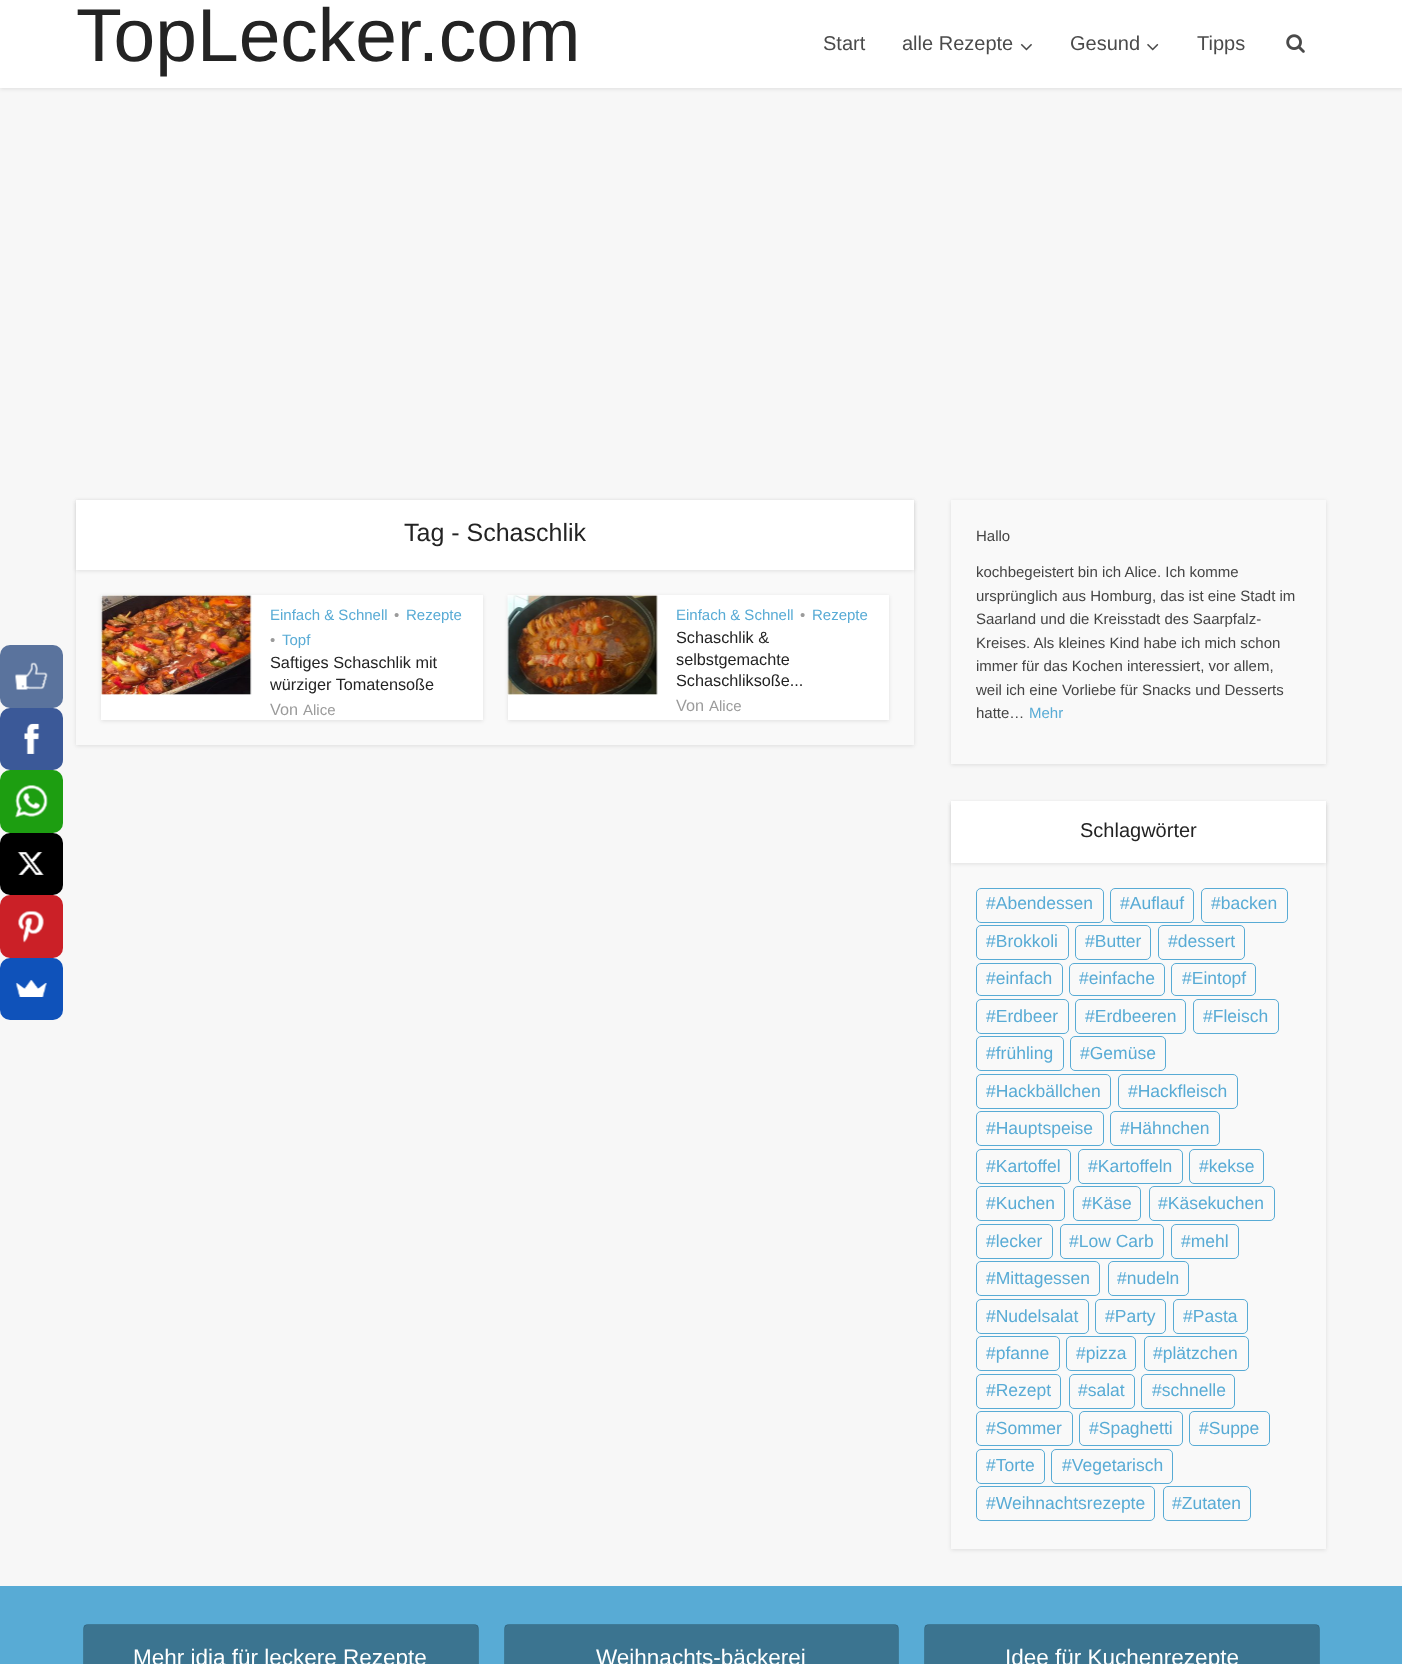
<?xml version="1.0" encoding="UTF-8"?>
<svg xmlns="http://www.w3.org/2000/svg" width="1402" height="1664">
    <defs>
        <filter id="blur1" x="-50%" y="-200%" width="200%" height="500%"><feGaussianBlur stdDeviation="2"/></filter>
    </defs>
    <rect width="100%" height="100%" fill="#F7F7F7"/>
    <rect x="0" y="645" width="63" height="63" rx="10" fill="#5A739D"/>
    <image x="15" y="662" width="33" height="28" href="img_01.png"/>
    <rect x="0" y="708" width="63" height="62" rx="10" fill="#3B5998"/>
    <image x="24" y="723" width="16" height="31" href="img_02.png"/>
    <rect x="0" y="770" width="63" height="63" rx="10" fill="#1D9E11"/>
    <image x="15" y="785" width="33" height="33" href="img_03.png"/>
    <rect x="0" y="833" width="63" height="62" rx="10" fill="#000000"/>
    <image x="17" y="852" width="27" height="23" href="img_04.png"/>
    <rect x="0" y="895" width="63" height="63" rx="10" fill="#CB2027"/>
    <image x="18" y="910" width="26" height="33" href="img_05.png"/>
    <rect x="0" y="958" width="63" height="62" rx="10" fill="#0F52BA"/>
    <image x="15" y="980" width="32" height="17" href="img_06.png"/>
    <rect x="0" y="1" width="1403" height="88" fill="#000000" fill-opacity="0.1" filter="url(#blur1)"/>
    <rect x="0" y="0" width="1402" height="88" fill="#FFFFFF"/>
    <text x="76" y="61" font-family="Liberation Sans" font-size="75" fill="#232323">TopLecker.com</text>
    <text x="823" y="50" font-family="Liberation Sans" font-size="20" fill="#4A4A4A">Start</text>
    <text x="902" y="50" font-family="Liberation Sans" font-size="20" fill="#4A4A4A">alle Rezepte</text>
    <image x="1020" y="43" width="12" height="8" href="img_07.png"/>
    <text x="1070" y="50" font-family="Liberation Sans" font-size="20" fill="#4A4A4A">Gesund</text>
    <image x="1147" y="43" width="12" height="8" href="img_08.png"/>
    <text x="1197" y="50" font-family="Liberation Sans" font-size="20" fill="#4A4A4A">Tipps</text>
    <image x="1286" y="34" width="19" height="19" href="img_09.png"/>
    <rect x="76" y="501" width="838" height="245" fill="#000000" fill-opacity="0.1" filter="url(#blur1)"/>
    <rect x="76" y="570" width="838" height="175" fill="#F9F9F9"/>
    <rect x="76" y="501" width="838" height="70" fill="#000000" fill-opacity="0.1" filter="url(#blur1)"/>
    <rect x="76" y="500" width="838" height="70" fill="#FFFFFF"/>
    <text x="404" y="541" font-family="Liberation Sans" font-size="25" fill="#232323">Tag - Schaschlik</text>
    <rect x="101" y="596" width="382" height="125" fill="#000000" fill-opacity="0.1" filter="url(#blur1)"/>
    <rect x="101" y="595" width="382" height="125" fill="#FFFFFF"/>
    <image x="101" y="595" width="151" height="100" href="img_10.png"/>
    <text x="270" y="620" font-family="Liberation Sans" font-size="15" fill="#58ABD5">Einfach &amp; Schnell</text>
    <text x="394" y="620" font-family="Liberation Sans" font-size="15" fill="#9B9B9B">•</text>
    <text x="406" y="620" font-family="Liberation Sans" font-size="15" fill="#58ABD5">Rezepte</text>
    <text x="270" y="645" font-family="Liberation Sans" font-size="15" fill="#9B9B9B">•</text>
    <text x="282" y="645" font-family="Liberation Sans" font-size="15" fill="#58ABD5">Topf</text>
    <text font-family="Liberation Sans" font-size="16.25" fill="#232323">
        <tspan x="270" y="668">Saftiges Schaschlik mit</tspan>
        <tspan x="270" y="690">würziger Tomatensoße</tspan>
    </text>
    <text x="270" y="715" font-family="Liberation Sans" font-size="16.25" fill="#9B9B9B">Von</text>
    <text x="303" y="715" font-family="Liberation Sans" font-size="15" fill="#9B9B9B">Alice</text>
    <rect x="508" y="596" width="381" height="125" fill="#000000" fill-opacity="0.1" filter="url(#blur1)"/>
    <rect x="508" y="595" width="381" height="125" fill="#FFFFFF"/>
    <image x="507" y="595" width="151" height="100" href="img_11.png"/>
    <text x="676" y="620" font-family="Liberation Sans" font-size="15" fill="#58ABD5">Einfach &amp; Schnell</text>
    <text x="800" y="620" font-family="Liberation Sans" font-size="15" fill="#9B9B9B">•</text>
    <text x="812" y="620" font-family="Liberation Sans" font-size="15" fill="#58ABD5">Rezepte</text>
    <text font-family="Liberation Sans" font-size="16.25" fill="#232323">
        <tspan x="676" y="643">Schaschlik &amp;</tspan>
        <tspan x="676" y="665">selbstgemachte</tspan>
        <tspan x="676" y="686">Schaschliksoße...</tspan>
    </text>
    <text x="676" y="711" font-family="Liberation Sans" font-size="16.25" fill="#9B9B9B">Von</text>
    <text x="709" y="711" font-family="Liberation Sans" font-size="15" fill="#9B9B9B">Alice</text>
    <rect x="951" y="501" width="375" height="264" fill="#000000" fill-opacity="0.1" filter="url(#blur1)"/>
    <rect x="951" y="500" width="375" height="264" fill="#F9F9F9"/>
    <text x="976" y="541" font-family="Liberation Sans" font-size="15" fill="#444444">Hallo</text>
    <text font-family="Liberation Sans" font-size="15" fill="#444444">
        <tspan x="976" y="577">kochbegeistert bin ich Alice. Ich komme</tspan>
        <tspan x="976" y="601">ursprünglich aus Homburg, das ist eine Stadt im</tspan>
        <tspan x="976" y="624">Saarland und die Kreisstadt des Saarpfalz-</tspan>
        <tspan x="976" y="648">Kreises. Als kleines Kind habe ich mich schon</tspan>
        <tspan x="976" y="671">immer für das Kochen interessiert, vor allem,</tspan>
        <tspan x="976" y="695">weil ich eine Vorliebe für Snacks und Desserts</tspan>
        <tspan x="976" y="718">hatte…</tspan>
    </text>
    <text x="1029" y="718" font-family="Liberation Sans" font-size="15" fill="#58ABD5">Mehr</text>
    <rect x="951" y="803" width="375" height="747" fill="#000000" fill-opacity="0.1" filter="url(#blur1)"/>
    <rect x="951" y="863" width="375" height="686" fill="#F9F9F9"/>
    <rect x="951" y="803" width="375" height="61" fill="#000000" fill-opacity="0.1" filter="url(#blur1)"/>
    <rect x="951" y="801" width="375" height="62" fill="#FFFFFF"/>
    <text x="1080" y="837" font-family="Liberation Sans" font-size="20" fill="#232323">Schlagwörter</text>
    <rect x="976.5" y="888.5" width="127" height="34" rx="4.5" fill="none" stroke="#58ABD5"/>
    <text x="986" y="909" font-family="Liberation Sans" font-size="17.5" fill="#58ABD5">#Abendessen</text>
    <rect x="1110.5" y="888.5" width="83" height="34" rx="4.5" fill="none" stroke="#58ABD5"/>
    <text x="1120" y="909" font-family="Liberation Sans" font-size="17.5" fill="#58ABD5">#Auflauf</text>
    <rect x="1201.5" y="888.5" width="86" height="34" rx="4.5" fill="none" stroke="#58ABD5"/>
    <text x="1211" y="909" font-family="Liberation Sans" font-size="17.5" fill="#58ABD5">#backen</text>
    <rect x="976.5" y="925.5" width="92" height="34" rx="4.5" fill="none" stroke="#58ABD5"/>
    <text x="986" y="947" font-family="Liberation Sans" font-size="17.5" fill="#58ABD5">#Brokkoli</text>
    <rect x="1075.5" y="925.5" width="75" height="34" rx="4.5" fill="none" stroke="#58ABD5"/>
    <text x="1085" y="947" font-family="Liberation Sans" font-size="17.5" fill="#58ABD5">#Butter</text>
    <rect x="1158.5" y="925.5" width="86" height="34" rx="4.5" fill="none" stroke="#58ABD5"/>
    <text x="1168" y="947" font-family="Liberation Sans" font-size="17.5" fill="#58ABD5">#dessert</text>
    <rect x="976.5" y="963.5" width="86" height="32" rx="4.5" fill="none" stroke="#58ABD5"/>
    <text x="986" y="984" font-family="Liberation Sans" font-size="17.5" fill="#58ABD5">#einfach</text>
    <rect x="1069.5" y="963.5" width="95" height="32" rx="4.5" fill="none" stroke="#58ABD5"/>
    <text x="1079" y="984" font-family="Liberation Sans" font-size="17.5" fill="#58ABD5">#einfache</text>
    <rect x="1171.5" y="963.5" width="84" height="32" rx="4.5" fill="none" stroke="#58ABD5"/>
    <text x="1182" y="984" font-family="Liberation Sans" font-size="17.5" fill="#58ABD5">#Eintopf</text>
    <rect x="976.5" y="999.5" width="92" height="34" rx="4.5" fill="none" stroke="#58ABD5"/>
    <text x="986" y="1022" font-family="Liberation Sans" font-size="17.5" fill="#58ABD5">#Erdbeer</text>
    <rect x="1075.5" y="999.5" width="110" height="34" rx="4.5" fill="none" stroke="#58ABD5"/>
    <text x="1085" y="1022" font-family="Liberation Sans" font-size="17.5" fill="#58ABD5">#Erdbeeren</text>
    <rect x="1193.5" y="999.5" width="85" height="34" rx="4.5" fill="none" stroke="#58ABD5"/>
    <text x="1203" y="1022" font-family="Liberation Sans" font-size="17.5" fill="#58ABD5">#Fleisch</text>
    <rect x="976.5" y="1036.5" width="87" height="34" rx="4.5" fill="none" stroke="#58ABD5"/>
    <text x="986" y="1059" font-family="Liberation Sans" font-size="17.5" fill="#58ABD5">#frühling</text>
    <rect x="1070.5" y="1036.5" width="95" height="34" rx="4.5" fill="none" stroke="#58ABD5"/>
    <text x="1080" y="1059" font-family="Liberation Sans" font-size="17.5" fill="#58ABD5">#Gemüse</text>
    <rect x="976.5" y="1074.5" width="134" height="34" rx="4.5" fill="none" stroke="#58ABD5"/>
    <text x="986" y="1097" font-family="Liberation Sans" font-size="17.5" fill="#58ABD5">#Hackbällchen</text>
    <rect x="1118.5" y="1074.5" width="119" height="34" rx="4.5" fill="none" stroke="#58ABD5"/>
    <text x="1128" y="1097" font-family="Liberation Sans" font-size="17.5" fill="#58ABD5">#Hackfleisch</text>
    <rect x="976.5" y="1111.5" width="127" height="34" rx="4.5" fill="none" stroke="#58ABD5"/>
    <text x="986" y="1134" font-family="Liberation Sans" font-size="17.5" fill="#58ABD5">#Hauptspeise</text>
    <rect x="1110.5" y="1111.5" width="109" height="34" rx="4.5" fill="none" stroke="#58ABD5"/>
    <text x="1120" y="1134" font-family="Liberation Sans" font-size="17.5" fill="#58ABD5">#Hähnchen</text>
    <rect x="976.5" y="1149.5" width="94" height="34" rx="4.5" fill="none" stroke="#58ABD5"/>
    <text x="986" y="1172" font-family="Liberation Sans" font-size="17.5" fill="#58ABD5">#Kartoffel</text>
    <rect x="1078.5" y="1149.5" width="104" height="34" rx="4.5" fill="none" stroke="#58ABD5"/>
    <text x="1088" y="1172" font-family="Liberation Sans" font-size="17.5" fill="#58ABD5">#Kartoffeln</text>
    <rect x="1189.5" y="1149.5" width="74" height="34" rx="4.5" fill="none" stroke="#58ABD5"/>
    <text x="1199" y="1172" font-family="Liberation Sans" font-size="17.5" fill="#58ABD5">#kekse</text>
    <rect x="976.5" y="1186.5" width="88" height="34" rx="4.5" fill="none" stroke="#58ABD5"/>
    <text x="986" y="1209" font-family="Liberation Sans" font-size="17.5" fill="#58ABD5">#Kuchen</text>
    <rect x="1073.5" y="1186.5" width="67" height="34" rx="4.5" fill="none" stroke="#58ABD5"/>
    <text x="1082" y="1209" font-family="Liberation Sans" font-size="17.5" fill="#58ABD5">#Käse</text>
    <rect x="1149.5" y="1186.5" width="125" height="34" rx="4.5" fill="none" stroke="#58ABD5"/>
    <text x="1158" y="1209" font-family="Liberation Sans" font-size="17.5" fill="#58ABD5">#Käsekuchen</text>
    <rect x="976.5" y="1224.5" width="76" height="34" rx="4.5" fill="none" stroke="#58ABD5"/>
    <text x="986" y="1247" font-family="Liberation Sans" font-size="17.5" fill="#58ABD5">#lecker</text>
    <rect x="1060.5" y="1224.5" width="103" height="34" rx="4.5" fill="none" stroke="#58ABD5"/>
    <text x="1069" y="1247" font-family="Liberation Sans" font-size="17.5" fill="#58ABD5">#Low Carb</text>
    <rect x="1171.5" y="1224.5" width="67" height="34" rx="4.5" fill="none" stroke="#58ABD5"/>
    <text x="1181" y="1247" font-family="Liberation Sans" font-size="17.5" fill="#58ABD5">#mehl</text>
    <rect x="976.5" y="1261.5" width="123" height="34" rx="4.5" fill="none" stroke="#58ABD5"/>
    <text x="986" y="1284" font-family="Liberation Sans" font-size="17.5" fill="#58ABD5">#Mittagessen</text>
    <rect x="1108.5" y="1261.5" width="80" height="34" rx="4.5" fill="none" stroke="#58ABD5"/>
    <text x="1117" y="1284" font-family="Liberation Sans" font-size="17.5" fill="#58ABD5">#nudeln</text>
    <rect x="976.5" y="1299.5" width="112" height="34" rx="4.5" fill="none" stroke="#58ABD5"/>
    <text x="986" y="1322" font-family="Liberation Sans" font-size="17.5" fill="#58ABD5">#Nudelsalat</text>
    <rect x="1095.5" y="1299.5" width="70" height="34" rx="4.5" fill="none" stroke="#58ABD5"/>
    <text x="1105" y="1322" font-family="Liberation Sans" font-size="17.5" fill="#58ABD5">#Party</text>
    <rect x="1173.5" y="1299.5" width="74" height="34" rx="4.5" fill="none" stroke="#58ABD5"/>
    <text x="1183" y="1322" font-family="Liberation Sans" font-size="17.5" fill="#58ABD5">#Pasta</text>
    <rect x="976.5" y="1336.5" width="83" height="34" rx="4.5" fill="none" stroke="#58ABD5"/>
    <text x="986" y="1359" font-family="Liberation Sans" font-size="17.5" fill="#58ABD5">#pfanne</text>
    <rect x="1066.5" y="1336.5" width="69" height="34" rx="4.5" fill="none" stroke="#58ABD5"/>
    <text x="1076" y="1359" font-family="Liberation Sans" font-size="17.5" fill="#58ABD5">#pizza</text>
    <rect x="1144.5" y="1336.5" width="104" height="34" rx="4.5" fill="none" stroke="#58ABD5"/>
    <text x="1153" y="1359" font-family="Liberation Sans" font-size="17.5" fill="#58ABD5">#plätzchen</text>
    <rect x="976.5" y="1374.5" width="84" height="34" rx="4.5" fill="none" stroke="#58ABD5"/>
    <text x="986" y="1396" font-family="Liberation Sans" font-size="17.5" fill="#58ABD5">#Rezept</text>
    <rect x="1069.5" y="1374.5" width="65" height="34" rx="4.5" fill="none" stroke="#58ABD5"/>
    <text x="1078" y="1396" font-family="Liberation Sans" font-size="17.5" fill="#58ABD5">#salat</text>
    <rect x="1141.5" y="1374.5" width="93" height="34" rx="4.5" fill="none" stroke="#58ABD5"/>
    <text x="1152" y="1396" font-family="Liberation Sans" font-size="17.5" fill="#58ABD5">#schnelle</text>
    <rect x="976.5" y="1411.5" width="96" height="34" rx="4.5" fill="none" stroke="#58ABD5"/>
    <text x="986" y="1434" font-family="Liberation Sans" font-size="17.5" fill="#58ABD5">#Sommer</text>
    <rect x="1079.5" y="1411.5" width="103" height="34" rx="4.5" fill="none" stroke="#58ABD5"/>
    <text x="1089" y="1434" font-family="Liberation Sans" font-size="17.5" fill="#58ABD5">#Spaghetti</text>
    <rect x="1189.5" y="1411.5" width="80" height="34" rx="4.5" fill="none" stroke="#58ABD5"/>
    <text x="1199" y="1434" font-family="Liberation Sans" font-size="17.5" fill="#58ABD5">#Suppe</text>
    <rect x="976.5" y="1449.5" width="68" height="34" rx="4.5" fill="none" stroke="#58ABD5"/>
    <text x="986" y="1471" font-family="Liberation Sans" font-size="17.5" fill="#58ABD5">#Torte</text>
    <rect x="1051.5" y="1449.5" width="121" height="34" rx="4.5" fill="none" stroke="#58ABD5"/>
    <text x="1062" y="1471" font-family="Liberation Sans" font-size="17.5" fill="#58ABD5">#Vegetarisch</text>
    <rect x="976.5" y="1486.5" width="178" height="34" rx="4.5" fill="none" stroke="#58ABD5"/>
    <text x="986" y="1509" font-family="Liberation Sans" font-size="17.5" fill="#58ABD5">#Weihnachtsrezepte</text>
    <rect x="1163.5" y="1486.5" width="87" height="34" rx="4.5" fill="none" stroke="#58ABD5"/>
    <text x="1172" y="1509" font-family="Liberation Sans" font-size="17.5" fill="#58ABD5">#Zutaten</text>
    <rect x="0" y="1586" width="1402" height="78" fill="#58ABD5"/>
    <rect x="83" y="1624" width="396" height="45" rx="5" fill="#4689AA"/>
    <rect x="83.5" y="1624.5" width="395" height="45" rx="4.5" fill="none" stroke="#000000" stroke-opacity="0.1"/>
    <rect x="84" y="1625" width="394" height="39" fill="#000000" fill-opacity="0.15"/>
    <text x="133" y="1665" font-family="Liberation Sans" font-size="22.5" fill="#FFFFFF">Mehr idia für leckere Rezepte</text>
    <rect x="504" y="1624" width="395" height="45" rx="5" fill="#4689AA"/>
    <rect x="504.5" y="1624.5" width="394" height="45" rx="4.5" fill="none" stroke="#000000" stroke-opacity="0.1"/>
    <rect x="505" y="1625" width="393" height="39" fill="#000000" fill-opacity="0.15"/>
    <text x="596" y="1665" font-family="Liberation Sans" font-size="22.5" fill="#FFFFFF">Weihnachts-bäckerei</text>
    <rect x="924" y="1624" width="396" height="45" rx="5" fill="#4689AA"/>
    <rect x="924.5" y="1624.5" width="395" height="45" rx="4.5" fill="none" stroke="#000000" stroke-opacity="0.1"/>
    <rect x="925" y="1625" width="394" height="39" fill="#000000" fill-opacity="0.15"/>
    <text x="1005" y="1665" font-family="Liberation Sans" font-size="22.5" fill="#FFFFFF">Idee für Kuchenrezepte</text>
</svg>
